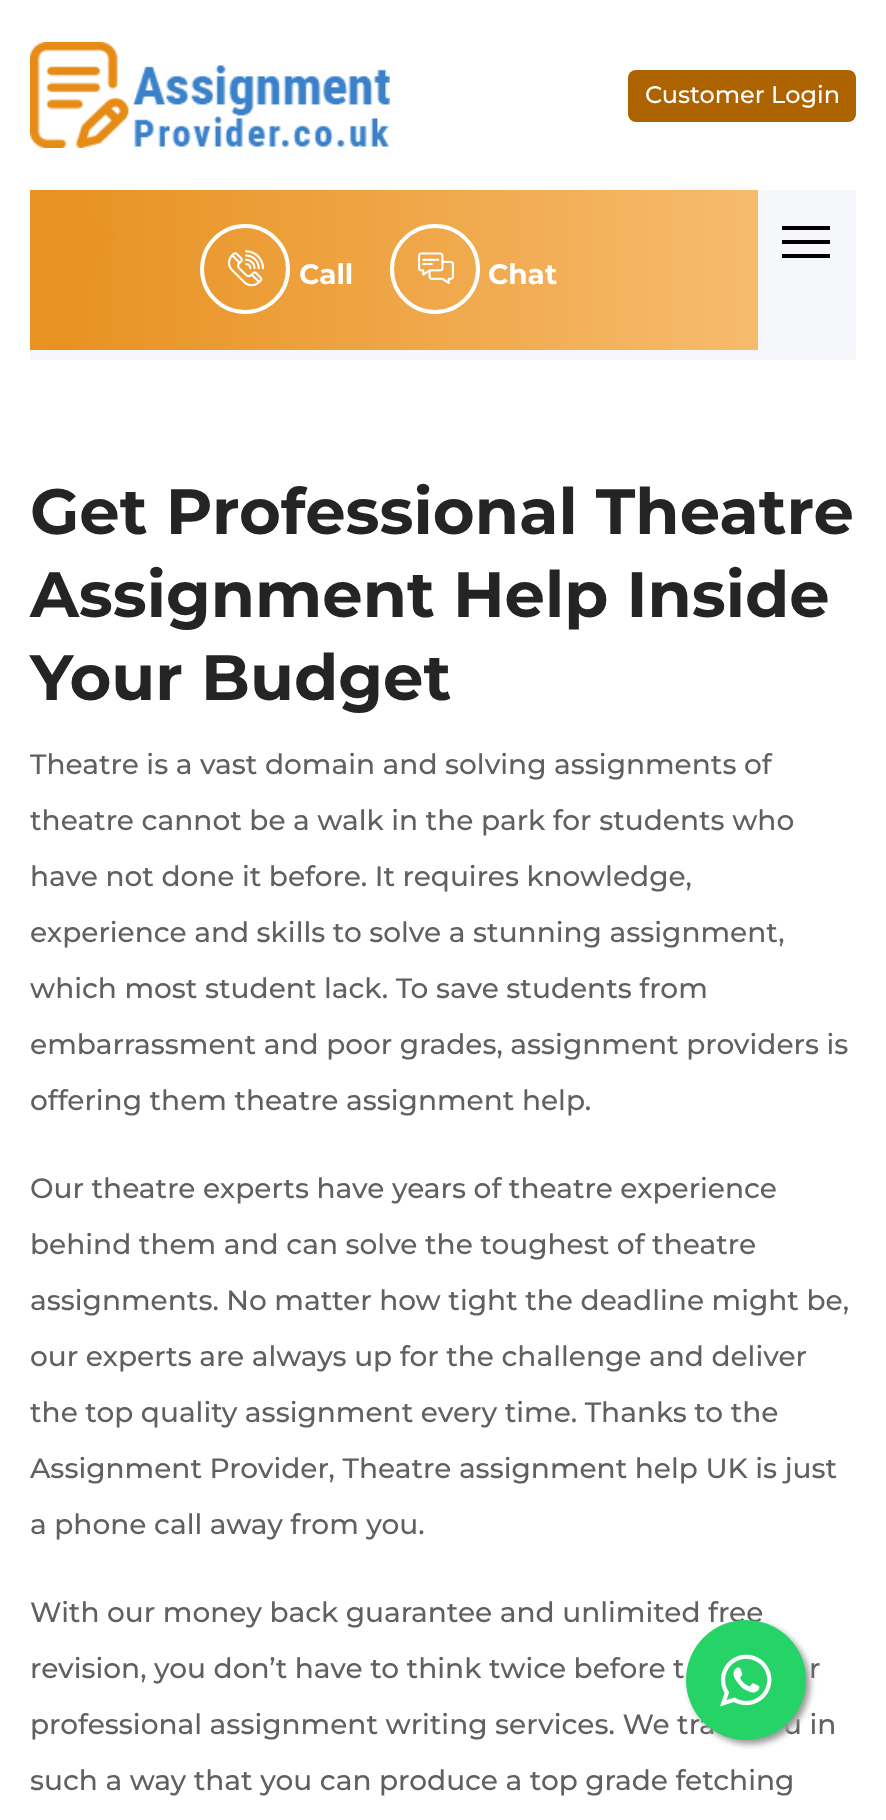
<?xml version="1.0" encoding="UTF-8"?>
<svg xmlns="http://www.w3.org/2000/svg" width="886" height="1820">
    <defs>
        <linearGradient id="g1" gradientUnits="userSpaceOnUse" x1="30" y1="270" x2="758" y2="270"><stop offset="0" stop-color="#E7901E"/><stop offset="1" stop-color="#F7BB6E"/></linearGradient>
        <clipPath id="clip1"><rect x="30" y="190" width="728" height="160"/></clipPath>
        <filter id="blur1" x="-50%" y="-200%" width="200%" height="500%"><feGaussianBlur stdDeviation="3"/></filter>
    </defs>
    <rect width="100%" height="100%" fill="#FFFFFF"/>
    <image x="30" y="42" width="360" height="106" href="img_01.png"/>
    <rect x="628" y="70" width="228" height="52" rx="8" fill="#AD6400"/>
    <text x="645" y="103" font-family="Montserrat" font-size="24" font-weight="500" fill="#FFFFFF">Customer Login</text>
    <rect x="30" y="190" width="826" height="170" fill="#F5F7FA"/>
    <rect x="782" y="240" width="48" height="4" fill="#000000"/>
    <rect x="782" y="226" width="48" height="4" fill="#000000"/>
    <rect x="782" y="254" width="48" height="4" fill="#000000"/>
    <rect x="39" y="190" width="719" height="160" fill="url(#g1)"/>
    <g clip-path="url(#clip1)">
        <path d="M 29 184 L 115 234 L 19 400 L -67 350 Z" fill="#E89324"/>
    </g>
    <circle cx="245" cy="269" r="43" fill="none" stroke="#FFFFFF" stroke-width="4"/>
    <image x="228" y="250" width="36" height="37" href="img_02.png"/>
    <text x="299" y="284" font-family="Montserrat" font-size="28" font-weight="700" fill="#FFFFFF">Call</text>
    <circle cx="435" cy="269" r="43" fill="none" stroke="#FFFFFF" stroke-width="4"/>
    <image x="418" y="252" width="36" height="33" href="img_03.png"/>
    <text x="488" y="284" font-family="Montserrat" font-size="28" font-weight="700" fill="#FFFFFF">Chat</text>
    <text font-family="Montserrat" font-size="64" font-weight="700" fill="#242424">
        <tspan x="30" y="534">Get Professional Theatre</tspan>
        <tspan x="30" y="617">Assignment Help Inside</tspan>
        <tspan x="30" y="700">Your Budget</tspan>
    </text>
    <text x="30" y="774" font-family="Montserrat" font-size="28" font-weight="500" fill="#606060">Theatre is a vast domain and solving assignments of</text>
    <text x="30" y="830" font-family="Montserrat" font-size="28" font-weight="500" fill="#606060">theatre cannot be a walk in the park for students who</text>
    <text x="30" y="886" font-family="Montserrat" font-size="28" font-weight="500" fill="#606060">have not done it before. It requires knowledge,</text>
    <text x="30" y="942" font-family="Montserrat" font-size="28" font-weight="500" fill="#606060">experience and skills to solve a stunning assignment,</text>
    <text x="30" y="998" font-family="Montserrat" font-size="28" font-weight="500" fill="#606060">which most student lack. To save students from</text>
    <text x="30" y="1054" font-family="Montserrat" font-size="28" font-weight="500" fill="#606060">embarrassment and poor grades, assignment providers is</text>
    <text x="30" y="1110" font-family="Montserrat" font-size="28" font-weight="500" fill="#606060">offering them theatre assignment help.</text>
    <text x="30" y="1198" font-family="Montserrat" font-size="28" font-weight="500" fill="#606060">Our theatre experts have years of theatre experience</text>
    <text x="30" y="1254" font-family="Montserrat" font-size="28" font-weight="500" fill="#606060">behind them and can solve the toughest of theatre</text>
    <text x="30" y="1310" font-family="Montserrat" font-size="28" font-weight="500" fill="#606060">assignments. No matter how tight the deadline might be,</text>
    <text x="30" y="1366" font-family="Montserrat" font-size="28" font-weight="500" fill="#606060">our experts are always up for the challenge and deliver</text>
    <text x="30" y="1422" font-family="Montserrat" font-size="28" font-weight="500" fill="#606060">the top quality assignment every time. Thanks to the</text>
    <text x="30" y="1478" font-family="Montserrat" font-size="28" font-weight="500" fill="#606060">Assignment Provider, Theatre assignment help UK is just</text>
    <text x="30" y="1534" font-family="Montserrat" font-size="28" font-weight="500" fill="#606060">a phone call away from you.</text>
    <text x="30" y="1622" font-family="Montserrat" font-size="28" font-weight="500" fill="#606060">With our money back guarantee and unlimited free</text>
    <text x="30" y="1678" font-family="Montserrat" font-size="28" font-weight="500" fill="#606060">revision, you don’t have to think twice before t</text>
    <text x="809" y="1678" font-family="Montserrat" font-size="28" font-weight="500" fill="#606060">r</text>
    <text x="30" y="1734" font-family="Montserrat" font-size="28" font-weight="500" fill="#606060">professional assignment writing services. We tra</text>
    <text x="783" y="1734" font-family="Montserrat" font-size="28" font-weight="500" fill="#606060">u in</text>
    <text x="30" y="1790" font-family="Montserrat" font-size="28" font-weight="500" fill="#606060">such a way that you can produce a top grade fetching</text>
    <rect x="690" y="1624" width="120" height="120" rx="60" fill="#999999" filter="url(#blur1)"/>
    <circle cx="746" cy="1680" r="60" fill="#25D366"/>
    <image x="720" y="1654" width="52" height="53" href="img_04.png"/>
</svg>
